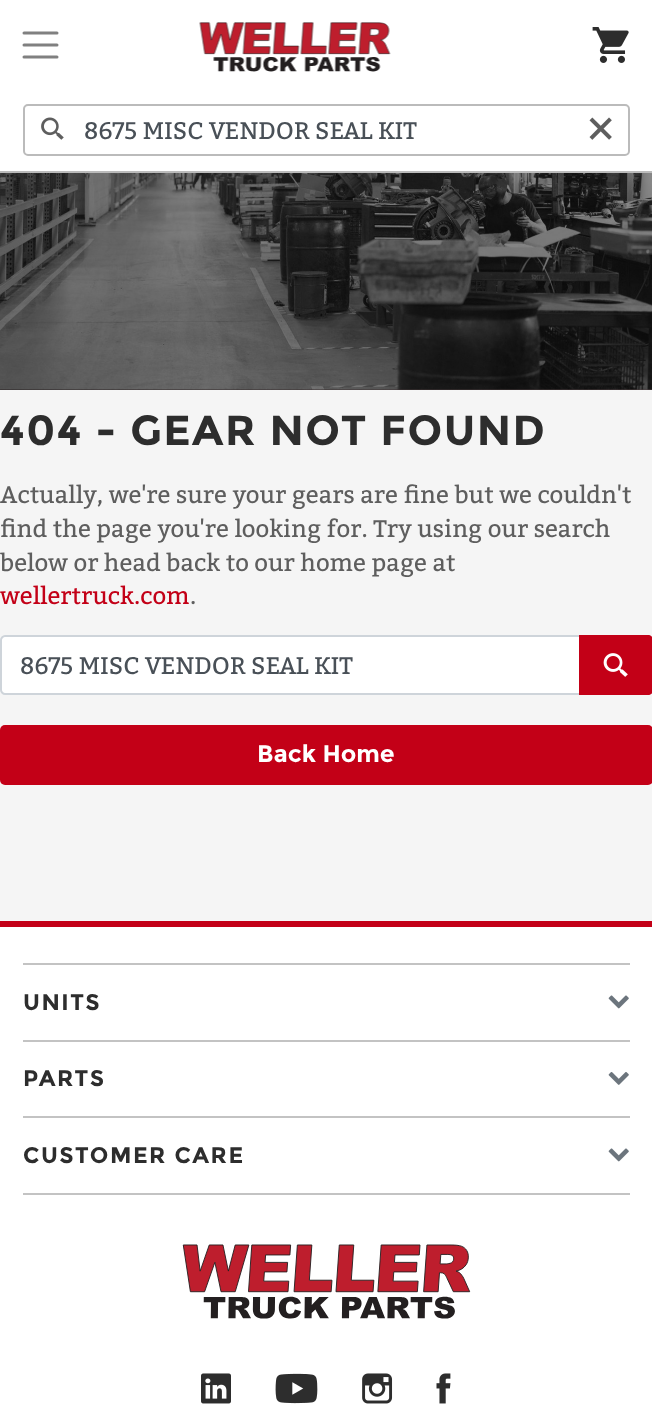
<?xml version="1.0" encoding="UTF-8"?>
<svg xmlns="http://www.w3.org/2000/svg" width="652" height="1427">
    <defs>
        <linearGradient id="g1" gradientUnits="userSpaceOnUse" x1="576" y1="467" x2="77" y2="-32"><stop offset="0" stop-color="#4F4142"/><stop offset="1" stop-color="#171313"/></linearGradient>
    </defs>
    <rect width="100%" height="100%" fill="#F5F5F5"/>
    <rect x="0" y="0" width="652" height="171" fill="#FFFFFF"/>
    <rect x="0" y="171" width="652" height="2" fill="#BBBBBB"/>
    <path d="M 24 33 H 57 M 24 45 H 57 M 24 57 H 57" fill="none" stroke="#808080" stroke-width="3" stroke-linecap="round"/>
    <image x="199" y="22" width="192" height="50" href="img_01.png"/>
    <image x="592" y="27" width="37" height="36" href="img_02.png"/>
    <rect x="24" y="105" width="605" height="50" rx="4" fill="none" stroke="#BBBBBB" stroke-width="2"/>
    <image x="41" y="117" width="23" height="23" href="img_03.png"/>
    <text x="84" y="139" font-family="Bitter" font-size="24" fill="#495057">8675 MISC VENDOR SEAL KIT</text>
    <image x="589" y="117" width="23" height="23" href="img_04.png"/>
    <rect x="0" y="389" width="652" height="1" fill="url(#g1)"/>
    <image x="0" y="173" width="652" height="217" href="img_05.png"/>
    <text x="0" y="445" font-family="Montserrat" font-size="42" font-weight="700" letter-spacing="1.5" fill="#2D2D2D">404 - GEAR NOT FOUND</text>
    <text font-family="Bitter" font-size="24" fill="#5E5E5E">
        <tspan x="0" y="503">Actually, we're sure your gears are fine but we couldn't</tspan>
        <tspan x="0" y="537">find the page you're looking for. Try using our search</tspan>
        <tspan x="0" y="571">below or head back to our home page at</tspan>
    </text>
    <text x="0" y="604" font-family="Bitter" font-size="24" fill="#C30017">wellertruck.com</text>
    <text x="190" y="604" font-family="Bitter" font-size="24" fill="#5E5E5E">.</text>
    <path d="M 5 636 H 580 V 694 H 5 C 3 694 1 692 1 690 V 640 C 1 638 3 636 5 636 Z" fill="#FFFFFF" stroke="#CED4DA" stroke-width="2"/>
    <text x="20" y="674" font-family="Bitter" font-size="24" fill="#495057">8675 MISC VENDOR SEAL KIT</text>
    <path d="M 579 635 H 648 C 651 635 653 637 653 640 V 690 C 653 693 651 695 648 695 H 579 Z" fill="#C30017"/>
    <image x="603" y="653" width="25" height="24" href="img_06.png"/>
    <rect x="0" y="725" width="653" height="60" rx="5" fill="#C30017"/>
    <text x="257" y="762" font-family="Montserrat" font-size="24" font-weight="700" fill="#FFFFFF">Back Home</text>
    <rect x="0" y="927" width="652" height="500" fill="#FFFFFF"/>
    <rect x="0" y="921" width="652" height="6" fill="#C30017"/>
    <rect x="23" y="963" width="607" height="2" fill="#C3C3C3"/>
    <text x="23" y="1010" font-family="Montserrat" font-size="22.5" font-weight="700" letter-spacing="1.5" fill="#2D2D2D">UNITS</text>
    <image x="608" y="995" width="21" height="14" href="img_07.png"/>
    <rect x="23" y="1040" width="607" height="2" fill="#C3C3C3"/>
    <text x="23" y="1086" font-family="Montserrat" font-size="22.5" font-weight="700" letter-spacing="1.5" fill="#2D2D2D">PARTS</text>
    <image x="608" y="1072" width="21" height="13" href="img_08.png"/>
    <rect x="23" y="1116" width="607" height="2" fill="#C3C3C3"/>
    <text x="23" y="1163" font-family="Montserrat" font-size="22.5" font-weight="700" letter-spacing="1.5" fill="#2D2D2D">CUSTOMER CARE</text>
    <image x="608" y="1148" width="21" height="14" href="img_07.png"/>
    <rect x="23" y="1193" width="607" height="2" fill="#C3C3C3"/>
    <image x="182" y="1244" width="289" height="75" href="img_09.png"/>
    <image x="201" y="1373" width="30" height="31" href="img_10.png"/>
    <image x="275" y="1373" width="43" height="31" href="img_11.png"/>
    <image x="362" y="1373" width="31" height="31" href="img_12.png"/>
    <image x="436" y="1373" width="15" height="31" href="img_13.png"/>
</svg>
